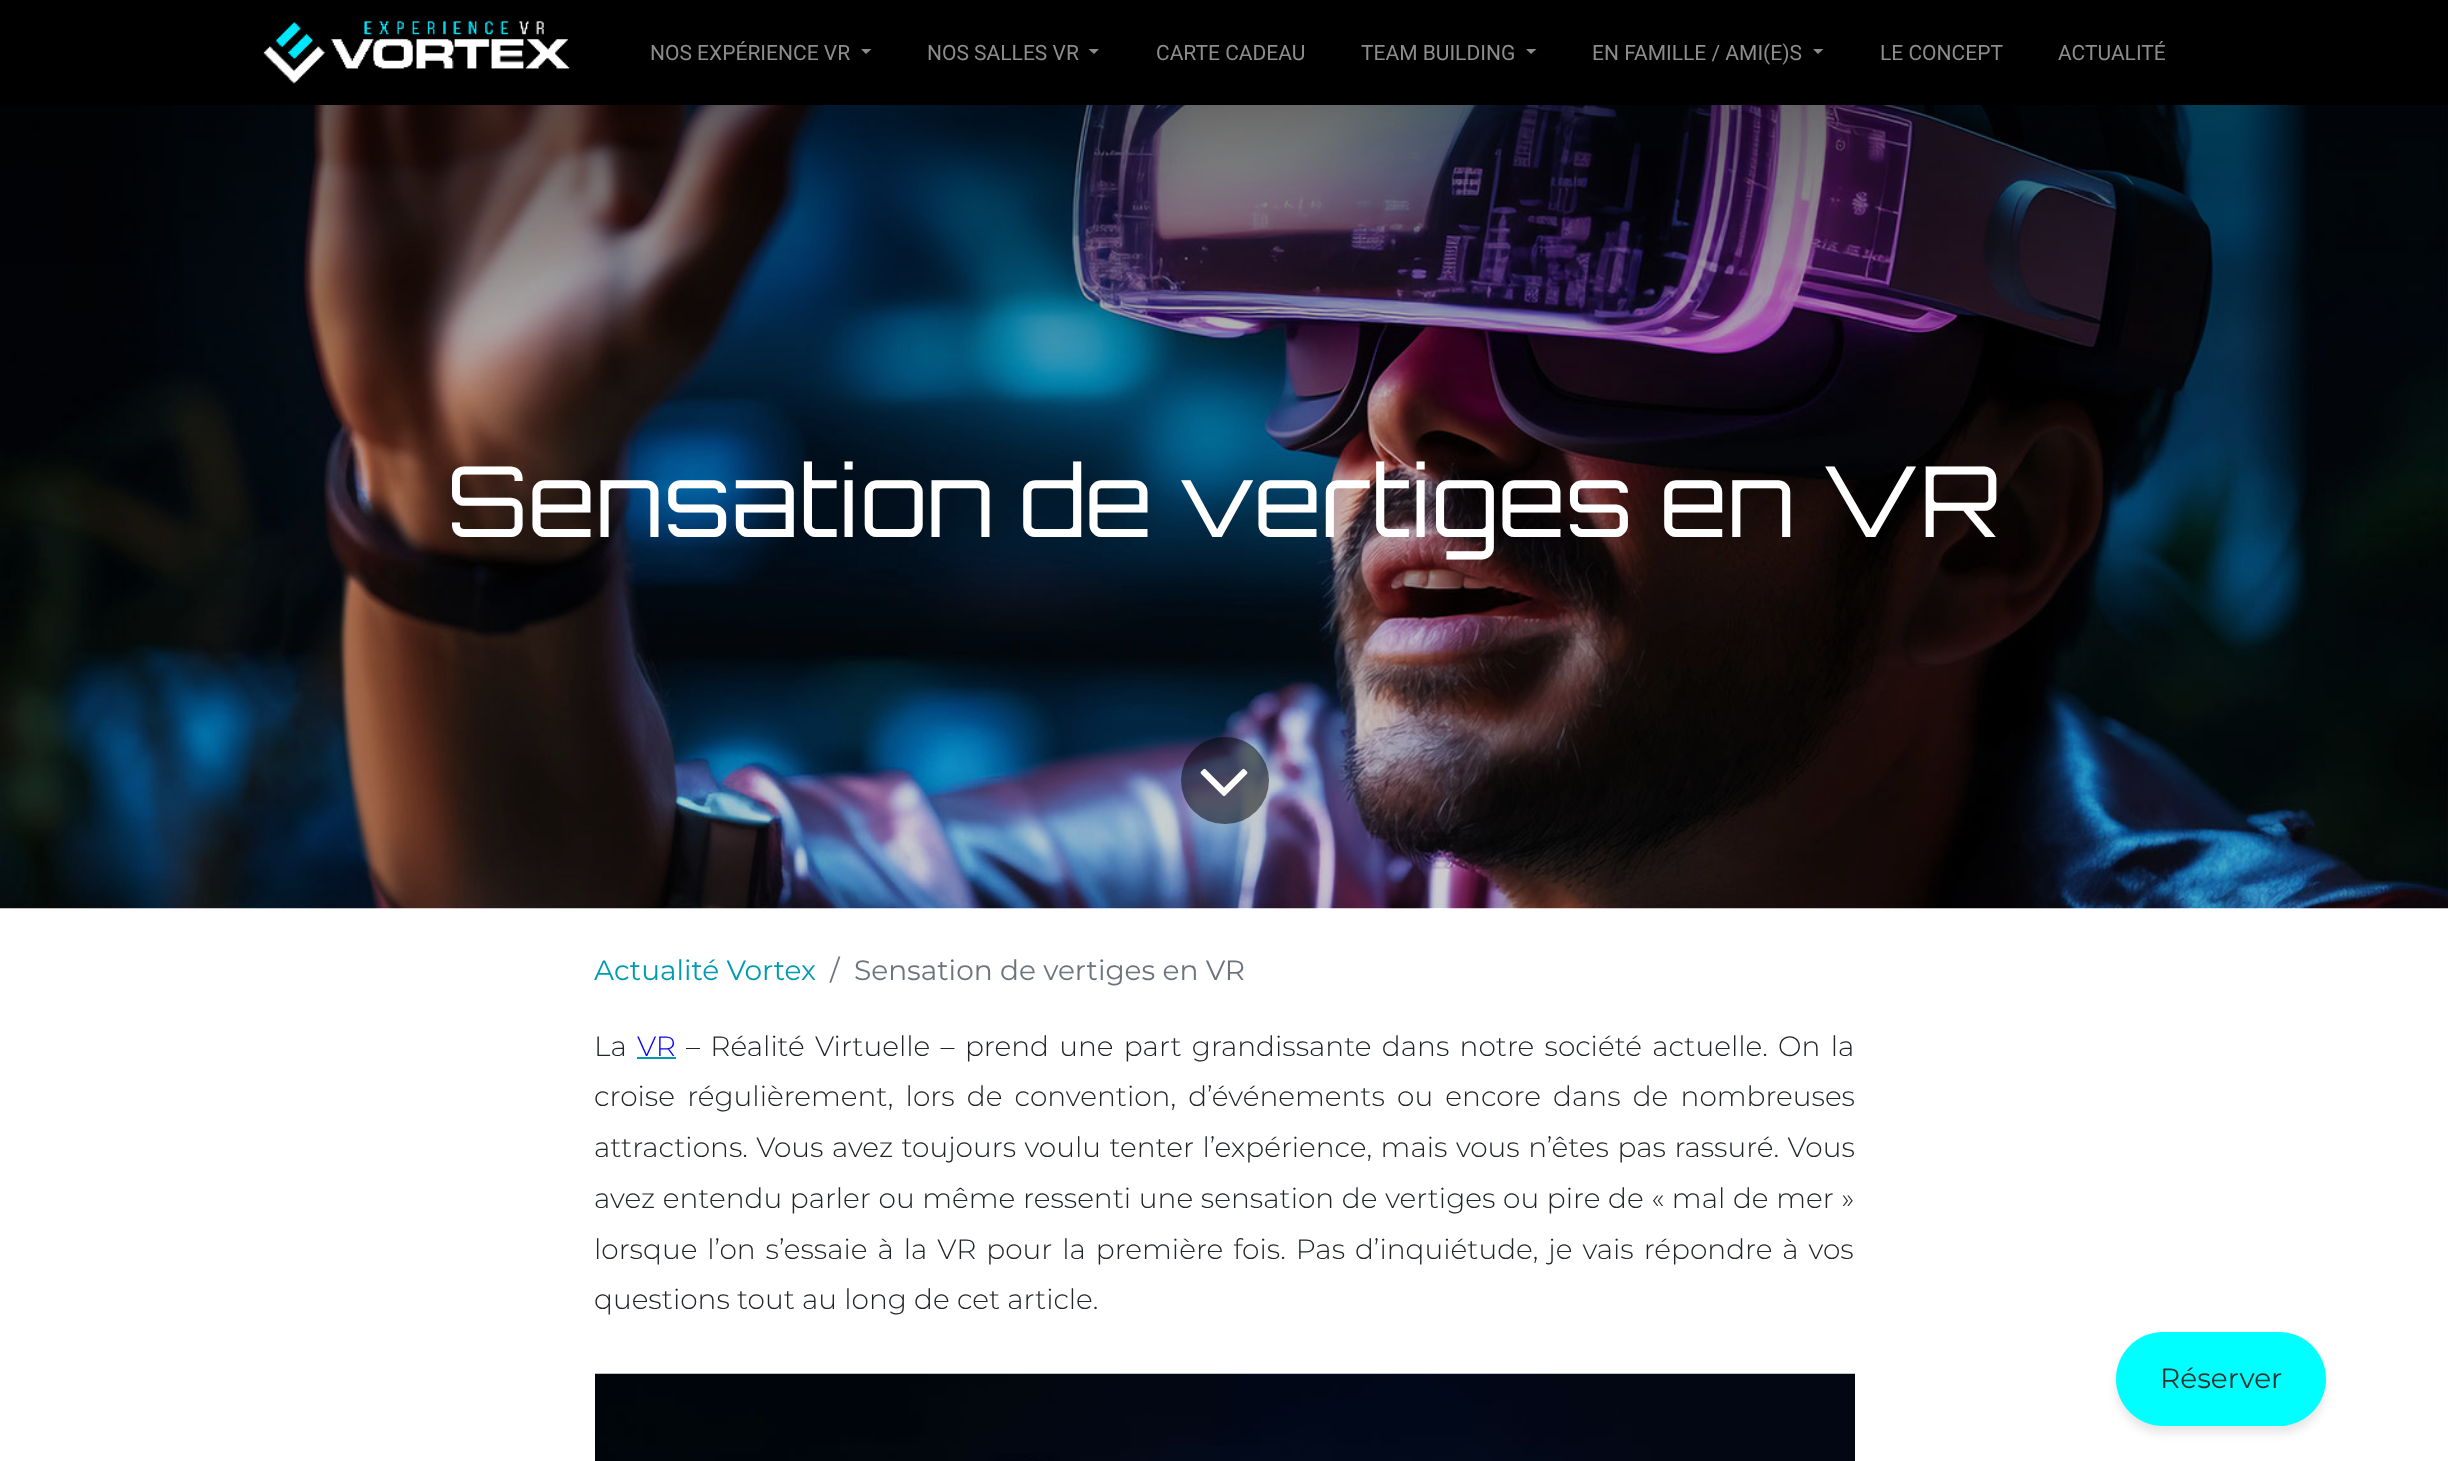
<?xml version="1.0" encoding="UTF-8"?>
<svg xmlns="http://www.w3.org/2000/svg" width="2448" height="1461">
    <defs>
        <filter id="blur1" x="-50%" y="-200%" width="200%" height="500%"><feGaussianBlur stdDeviation="5"/></filter>
    </defs>
    <rect width="100%" height="100%" fill="#FFFFFF"/>
    <rect x="0" y="0" width="2448" height="105" fill="#000000"/>
    <image x="263" y="21" width="307" height="63" href="img_01.png"/>
    <text x="650" y="60" font-family="Roboto" font-size="21" fill="#8C8C8C">NOS EXPÉRIENCE VR</text>
    <path d="M 861 49 H 871.5 L 866 54 Z" fill="#8C8C8C"/>
    <text x="927" y="60" font-family="Roboto" font-size="21" fill="#8C8C8C">NOS SALLES VR</text>
    <path d="M 1088.5 49 H 1099 L 1094 54 Z" fill="#8C8C8C"/>
    <text x="1156" y="60" font-family="Roboto" font-size="21" fill="#8C8C8C">CARTE CADEAU</text>
    <text x="1361" y="60" font-family="Roboto" font-size="21" fill="#8C8C8C">TEAM BUILDING</text>
    <path d="M 1526 49 H 1536.5 L 1531 54 Z" fill="#8C8C8C"/>
    <text x="1592" y="60" font-family="Roboto" font-size="21" fill="#8C8C8C">EN FAMILLE / AMI(E)S</text>
    <path d="M 1813 49 H 1823.5 L 1818 54 Z" fill="#8C8C8C"/>
    <text x="1880" y="60" font-family="Roboto" font-size="21" fill="#8C8C8C">LE CONCEPT</text>
    <text x="2058" y="60" font-family="Roboto" font-size="21" fill="#8C8C8C">ACTUALITÉ</text>
    <image x="0" y="105" width="2448" height="804" href="img_02.png"/>
    <text x="447" y="537" font-family="Orbitron" font-size="98" fill="#FFFFFF">Sensation de vertiges en VR</text>
    <rect x="1181" y="737" width="88" height="87" rx="43.5" fill="#000000" fill-opacity="0.5"/>
    <image x="1200" y="768" width="48" height="29" href="img_03.png"/>
    <text x="594" y="980" font-family="Montserrat" font-size="28" fill="#009BB3">Actualité Vortex</text>
    <text x="830" y="980" font-family="Montserrat" font-size="28" fill="#6C757D">/</text>
    <text x="854" y="980" font-family="Montserrat" font-size="28" fill="#6C757D">Sensation de vertiges en VR</text>
    <text x="594" y="1056" font-family="Montserrat" font-size="28" font-weight="300" fill="#212529">La</text>
    <text x="637" y="1056" font-family="Montserrat" font-size="28" font-weight="300" fill="#0000FF">VR</text>
    <rect x="637" y="1057" width="39" height="2" fill="#009BB3"/>
    <text x="686" y="1056" word-spacing="3.1" font-family="Montserrat" font-size="28" font-weight="300" fill="#212529">– Réalité Virtuelle – prend une part grandissante dans notre société actuelle. On la</text>
    <text font-family="Montserrat" font-size="28" font-weight="300" fill="#212529">
        <tspan x="594" y="1106" word-spacing="5">croise régulièrement, lors de convention, d’événements ou encore dans de nombreuses</tspan>
        <tspan x="594" y="1157" word-spacing="1.25">attractions. Vous avez toujours voulu tenter l’expérience, mais vous n’êtes pas rassuré. Vous</tspan>
        <tspan x="594" y="1208" word-spacing="0.5">avez entendu parler ou même ressenti une sensation de vertiges ou pire de « mal de mer »</tspan>
        <tspan x="594" y="1259" word-spacing="2.75">lorsque l’on s’essaie à la VR pour la première fois. Pas d’inquiétude, je vais répondre à vos</tspan>
        <tspan x="594" y="1309">questions tout au long de cet article.</tspan>
    </text>
    <image x="595" y="1373" width="1260" height="88" href="img_04.png"/>
    <rect x="2116" y="1339" width="210" height="94" rx="47" fill="#000000" fill-opacity="0.1" filter="url(#blur1)"/>
    <rect x="2116" y="1332" width="210" height="94" rx="47" fill="#00FFFF"/>
    <text x="2160" y="1388" font-family="Montserrat" font-size="28" fill="#333333">Réserver</text>
</svg>
